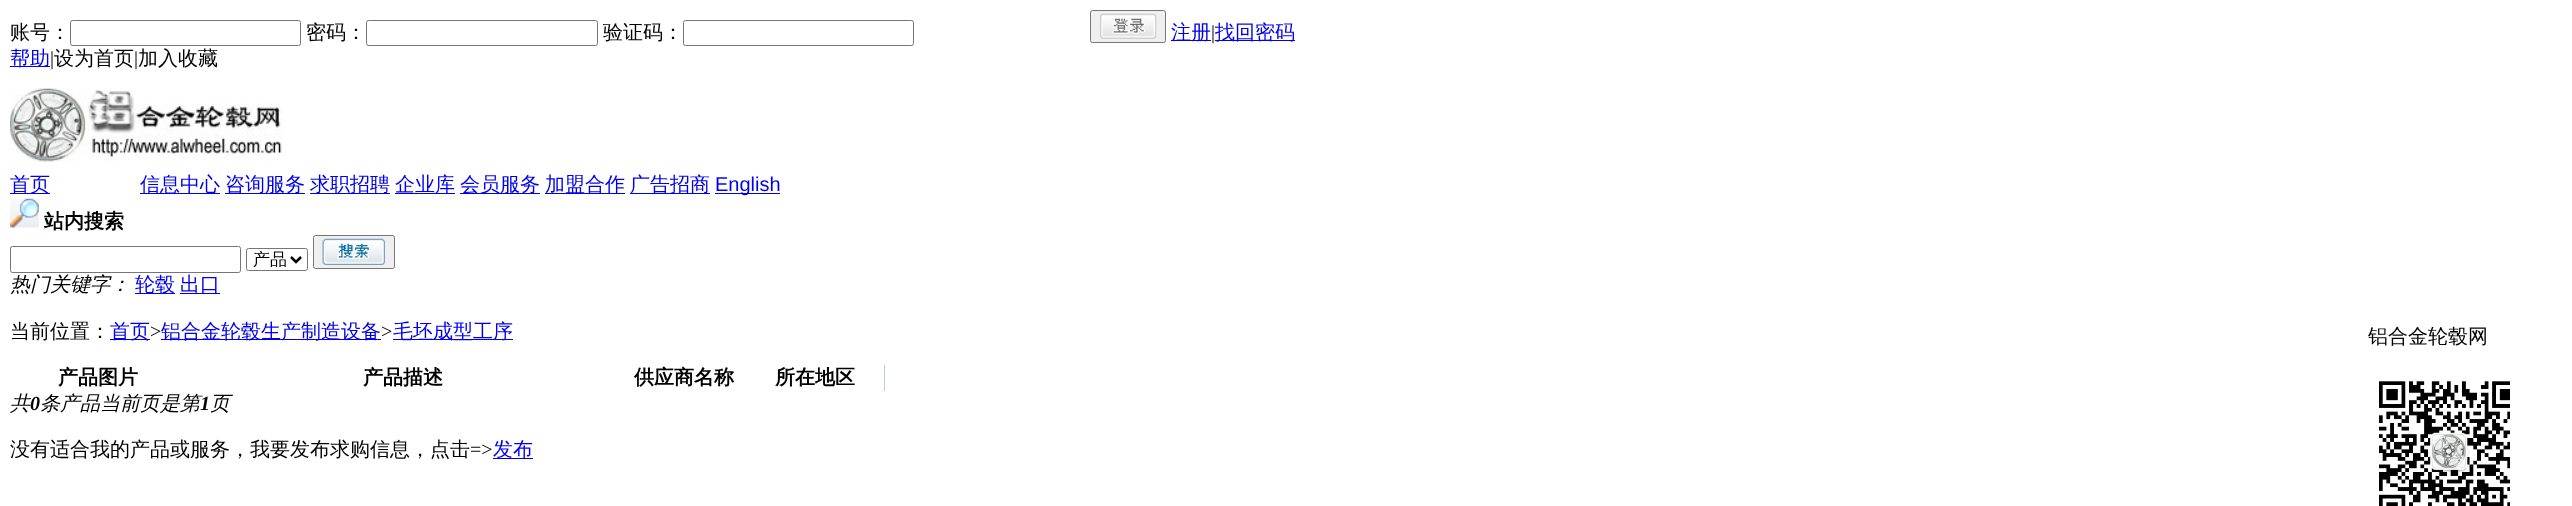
<?xml version="1.0" encoding="UTF-8"?>
<svg xmlns="http://www.w3.org/2000/svg" width="2572" height="506">
    <rect width="100%" height="100%" fill="#FFFFFF"/>
    <text x="10" y="39" font-family="WenQuanYi Zen Hei" font-size="20" font-weight="500" fill="#000000">账号：</text>
    <rect x="70.5" y="20.5" width="230" height="25" rx="2" fill="none" stroke="#767676"/>
    <text x="306" y="39" font-family="WenQuanYi Zen Hei" font-size="20" font-weight="500" fill="#000000">密码：</text>
    <rect x="366.5" y="20.5" width="231" height="25" rx="2" fill="none" stroke="#767676"/>
    <text x="603" y="39" font-family="WenQuanYi Zen Hei" font-size="20" font-weight="500" fill="#000000">验证码：</text>
    <rect x="683.5" y="20.5" width="230" height="25" rx="2" fill="none" stroke="#767676"/>
    <rect x="1090.5" y="10.5" width="75" height="32" rx="2" fill="#EFEFEF" stroke="#767676"/>
    <image x="1100" y="13" width="57" height="26" href="img_01.png"/>
    <rect x="1171" y="40" width="40" height="1" fill="#0000EE"/>
    <text x="1171" y="39" font-family="WenQuanYi Zen Hei" font-size="20" font-weight="500" fill="#0000EE">注册</text>
    <text x="1211" y="39" font-family="Liberation Serif" font-size="20" fill="#000000">|</text>
    <rect x="1215" y="40" width="80" height="1" fill="#0000EE"/>
    <text x="1215" y="39" font-family="WenQuanYi Zen Hei" font-size="20" font-weight="500" fill="#0000EE">找回密码</text>
    <rect x="10" y="66" width="40" height="1" fill="#0000EE"/>
    <text x="10" y="65" font-family="WenQuanYi Zen Hei" font-size="20" font-weight="500" fill="#0000EE">帮助</text>
    <text x="50" y="65" font-family="Liberation Serif" font-size="20" fill="#000000">|</text>
    <text x="54" y="65" font-family="WenQuanYi Zen Hei" font-size="20" font-weight="500" fill="#000000">设为首页</text>
    <text x="134" y="65" font-family="Liberation Serif" font-size="20" fill="#000000">|</text>
    <text x="138" y="65" font-family="WenQuanYi Zen Hei" font-size="20" font-weight="500" fill="#000000">加入收藏</text>
    <image x="10" y="88" width="273" height="74" href="img_02.png"/>
    <rect x="10" y="193" width="40" height="1" fill="#0000EE"/>
    <text x="10" y="191" font-family="WenQuanYi Zen Hei" font-size="20" font-weight="500" fill="#0000EE">首页</text>
    <rect x="140" y="193" width="80" height="1" fill="#0000EE"/>
    <text x="140" y="191" font-family="WenQuanYi Zen Hei" font-size="20" font-weight="500" fill="#0000EE">信息中心</text>
    <rect x="225" y="193" width="80" height="1" fill="#0000EE"/>
    <text x="225" y="191" font-family="WenQuanYi Zen Hei" font-size="20" font-weight="500" fill="#0000EE">咨询服务</text>
    <rect x="310" y="193" width="80" height="1" fill="#0000EE"/>
    <text x="310" y="191" font-family="WenQuanYi Zen Hei" font-size="20" font-weight="500" fill="#0000EE">求职招聘</text>
    <rect x="395" y="193" width="60" height="1" fill="#0000EE"/>
    <text x="395" y="191" font-family="WenQuanYi Zen Hei" font-size="20" font-weight="500" fill="#0000EE">企业库</text>
    <rect x="460" y="193" width="80" height="1" fill="#0000EE"/>
    <text x="460" y="191" font-family="WenQuanYi Zen Hei" font-size="20" font-weight="500" fill="#0000EE">会员服务</text>
    <rect x="545" y="193" width="80" height="1" fill="#0000EE"/>
    <text x="545" y="191" font-family="WenQuanYi Zen Hei" font-size="20" font-weight="500" fill="#0000EE">加盟合作</text>
    <rect x="630" y="193" width="80" height="1" fill="#0000EE"/>
    <text x="630" y="191" font-family="WenQuanYi Zen Hei" font-size="20" font-weight="500" fill="#0000EE">广告招商</text>
    <rect x="715" y="193" width="65" height="1" fill="#0000EE"/>
    <text x="715" y="191" font-family="Liberation Sans" font-size="20" fill="#0000EE">English</text>
    <image x="10" y="198" width="29" height="30" href="img_03.png"/>
    <text x="44" y="228" font-family="WenQuanYi Zen Hei" font-size="20" font-weight="700" fill="#000000">站内搜索</text>
    <rect x="10.5" y="246.5" width="230" height="26" rx="2" fill="none" stroke="#767676"/>
    <rect x="246.5" y="248.5" width="61" height="22" rx="2" fill="none" stroke="#767676"/>
    <path d="M 291 257 L 296 262 L 301 257" fill="none" stroke="#000000" stroke-width="2.5"/>
    <text x="253" y="265" font-family="WenQuanYi Zen Hei" font-size="17" font-weight="500" fill="#000000">产品</text>
    <rect x="313.5" y="235.5" width="81" height="33" rx="2" fill="#EFEFEF" stroke="#767676"/>
    <image x="322" y="238" width="63" height="27" href="img_04.png"/>
    <text x="10" y="291" font-family="WenQuanYi Zen Hei" font-size="20" font-weight="500" font-style="italic" fill="#000000">热门关键字：</text>
    <rect x="135" y="293" width="40" height="1" fill="#0000EE"/>
    <text x="135" y="291" font-family="WenQuanYi Zen Hei" font-size="20" font-weight="500" fill="#0000EE">轮毂</text>
    <rect x="180" y="293" width="40" height="1" fill="#0000EE"/>
    <text x="180" y="291" font-family="WenQuanYi Zen Hei" font-size="20" font-weight="500" fill="#0000EE">出口</text>
    <text x="10" y="338" font-family="WenQuanYi Zen Hei" font-size="20" font-weight="500" fill="#000000">当前位置：</text>
    <rect x="110" y="339" width="40" height="1" fill="#0000EE"/>
    <text x="110" y="338" font-family="WenQuanYi Zen Hei" font-size="20" font-weight="500" fill="#0000EE">首页</text>
    <text x="150" y="338" font-family="Liberation Serif" font-size="20" fill="#000000">&gt;</text>
    <rect x="161" y="339" width="220" height="1" fill="#0000EE"/>
    <text x="161" y="338" font-family="WenQuanYi Zen Hei" font-size="20" font-weight="500" fill="#0000EE">铝合金轮毂生产制造设备</text>
    <text x="381" y="338" font-family="Liberation Serif" font-size="20" fill="#000000">&gt;</text>
    <rect x="393" y="339" width="120" height="1" fill="#0000EE"/>
    <text x="393" y="338" font-family="WenQuanYi Zen Hei" font-size="20" font-weight="500" fill="#0000EE">毛坯成型工序</text>
    <text x="2368" y="343" font-family="WenQuanYi Zen Hei" font-size="20" font-weight="500" fill="#000000">铝合金轮毂网</text>
    <image x="2379" y="381" width="131" height="125" href="img_05.png"/>
    <text x="58" y="384" font-family="WenQuanYi Zen Hei" font-size="20" font-weight="700" fill="#000000">产品图片</text>
    <text x="363" y="384" font-family="WenQuanYi Zen Hei" font-size="20" font-weight="700" fill="#000000">产品描述</text>
    <text x="634" y="384" font-family="WenQuanYi Zen Hei" font-size="20" font-weight="700" fill="#000000">供应商名称</text>
    <rect x="884" y="365" width="1" height="26" fill="#BCCCDC"/>
    <text x="775" y="384" font-family="WenQuanYi Zen Hei" font-size="20" font-weight="700" fill="#000000">所在地区</text>
    <text x="10" y="410" font-family="WenQuanYi Zen Hei" font-size="20" font-weight="500" font-style="italic" fill="#000000">共</text>
    <text x="30" y="410" font-family="Liberation Serif" font-size="20" font-weight="700" font-style="italic" fill="#000000">0</text>
    <text x="40" y="410" font-family="WenQuanYi Zen Hei" font-size="20" font-weight="500" font-style="italic" fill="#000000">条产品当前页是第</text>
    <text x="200" y="410" font-family="Liberation Serif" font-size="20" font-weight="700" font-style="italic" fill="#000000">1</text>
    <text x="210" y="410" font-family="WenQuanYi Zen Hei" font-size="20" font-weight="500" font-style="italic" fill="#000000">页</text>
    <text x="10" y="456" font-family="WenQuanYi Zen Hei" font-size="20" font-weight="500" fill="#000000">没有适合我的产品或服务，我要发布求购信息，点击</text>
    <text x="470" y="456" font-family="Liberation Serif" font-size="20" fill="#000000">=&gt;</text>
    <rect x="493" y="458" width="40" height="1" fill="#0000EE"/>
    <text x="493" y="456" font-family="WenQuanYi Zen Hei" font-size="20" font-weight="500" fill="#0000EE">发布</text>
</svg>
